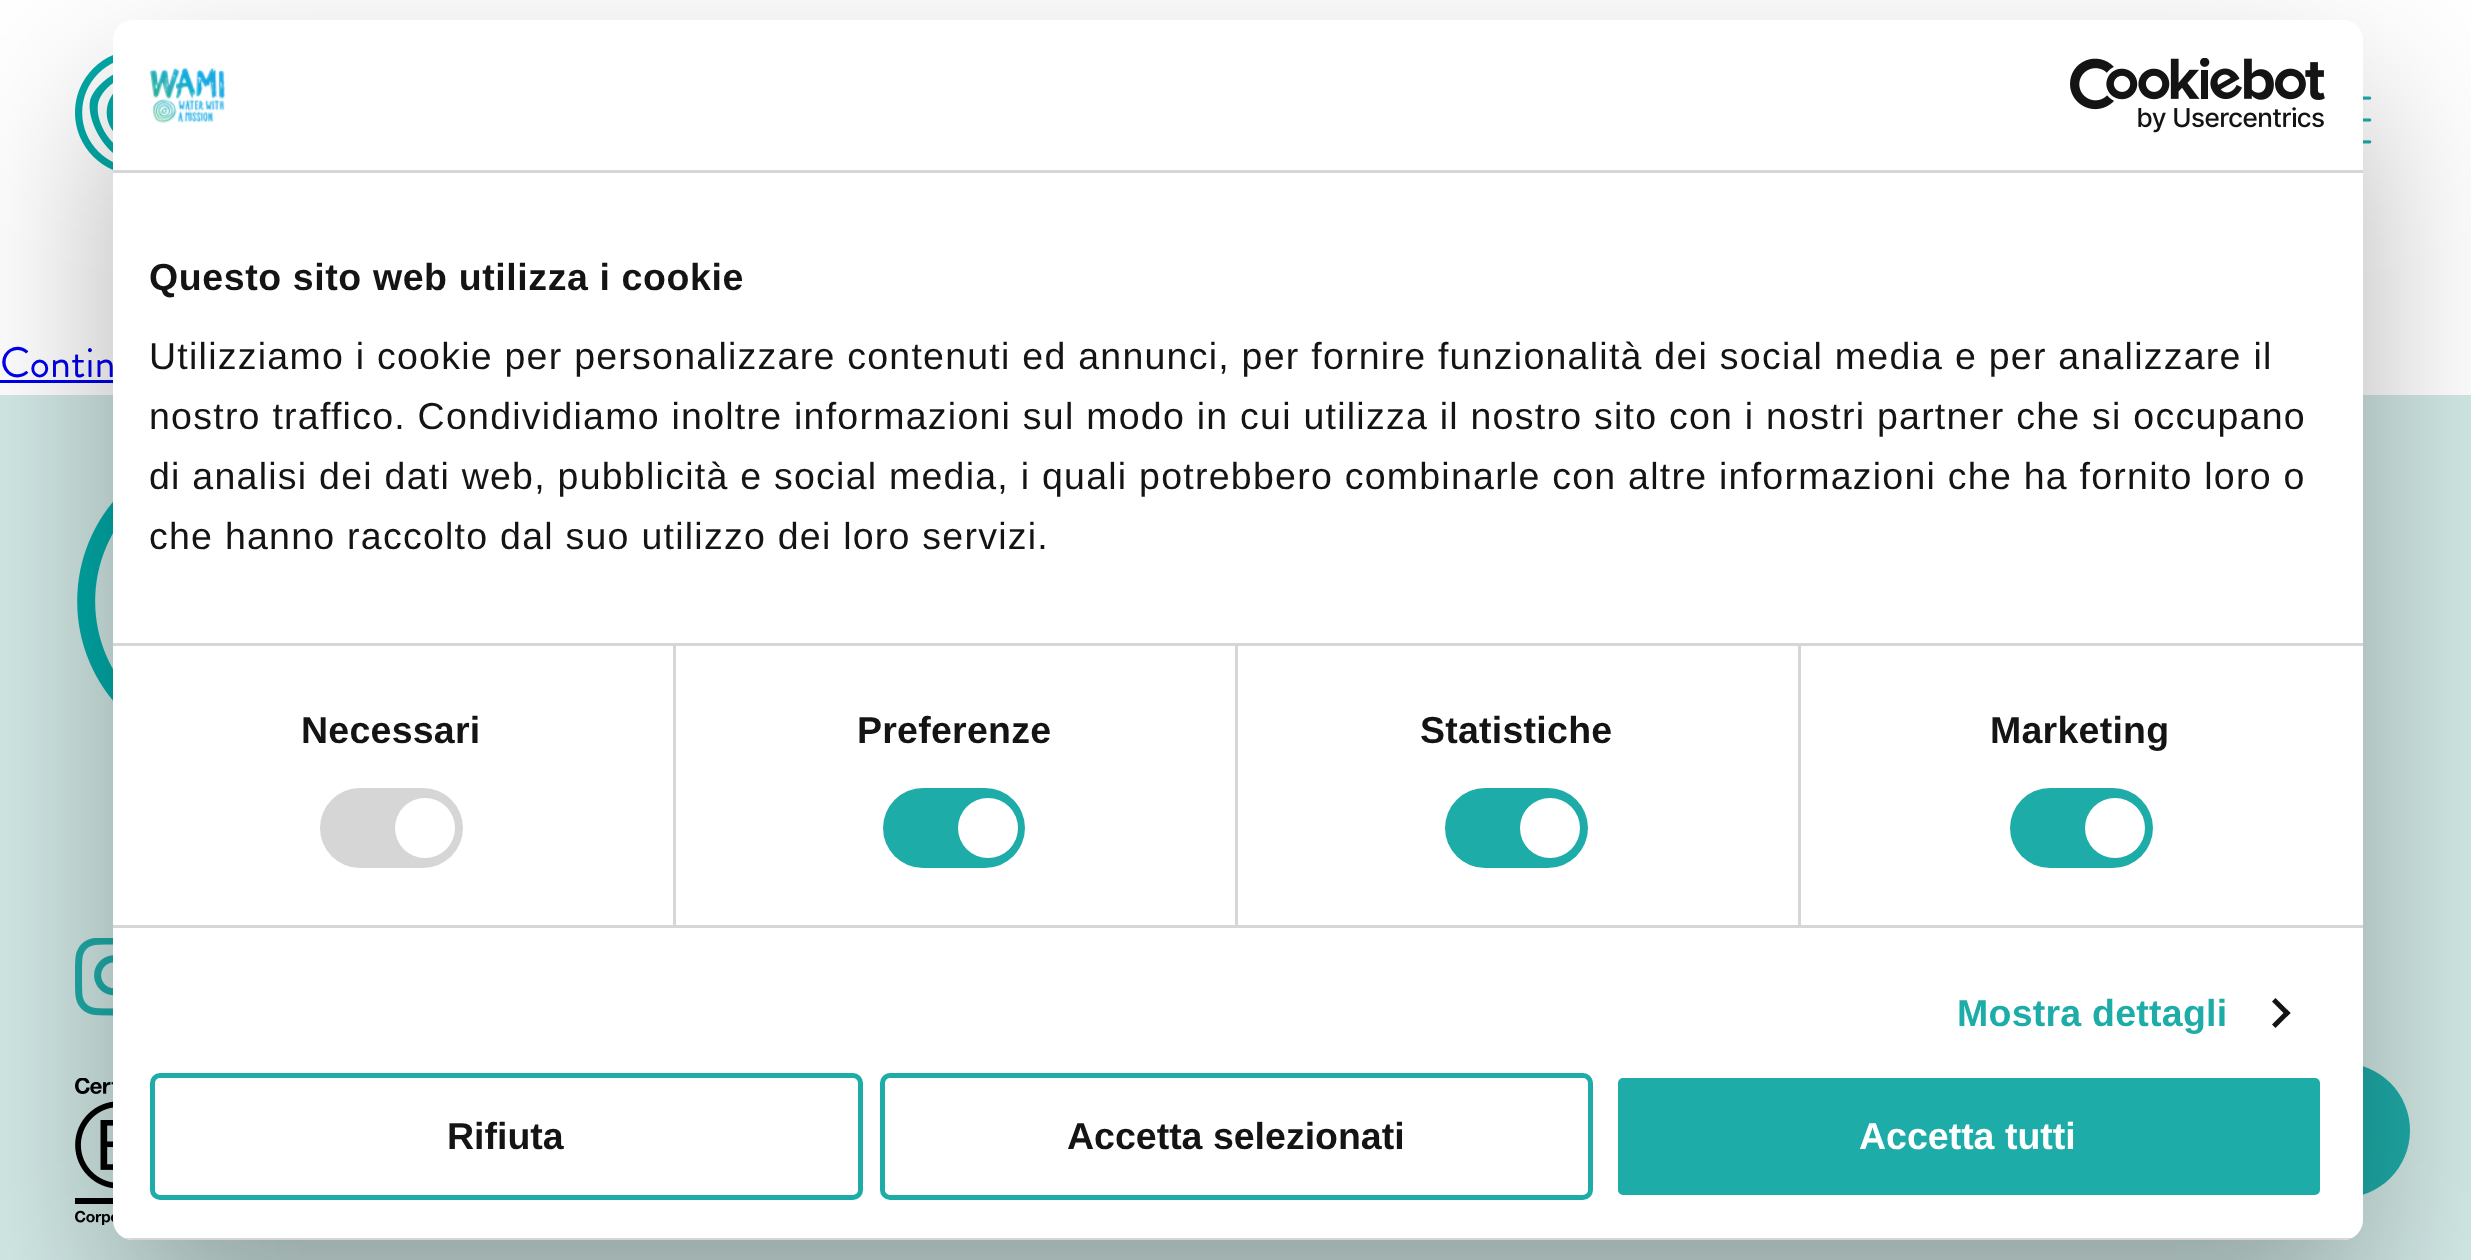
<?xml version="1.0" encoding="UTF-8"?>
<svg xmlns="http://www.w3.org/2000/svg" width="2471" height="1260">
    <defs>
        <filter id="blur1" x="-50%" y="-200%" width="200%" height="500%"><feGaussianBlur stdDeviation="85"/></filter>
        <clipPath id="clip1"><rect x="113" y="20" width="2250" height="1220" rx="20"/></clipPath>
    </defs>
    <rect width="100%" height="100%" fill="#FFFFFF"/>
    <image x="75" y="55" width="38" height="115" href="img_01.png"/>
    <image x="2363" y="96" width="9" height="48" href="img_02.png"/>
    <text x="0" y="377" font-family="Brandon Grotesque" font-size="42.5" fill="#0000EE">Contin</text>
    <rect x="0" y="380" width="113" height="3" fill="#0000EE"/>
    <rect x="0" y="395" width="2471" height="865" fill="#D1E8E5"/>
    <image x="77" y="502" width="36" height="199" href="img_05.png"/>
    <image x="75" y="938" width="38" height="78" href="img_06.png"/>
    <image x="75" y="1078" width="39" height="147" href="img_07.png"/>
    <rect x="1868" y="1063" width="542" height="135" rx="67.5" fill="#1EACA9"/>
    <rect x="113" y="100" width="2250" height="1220" rx="20" fill="#000000" fill-opacity="0.3" filter="url(#blur1)"/>
    <rect x="113" y="20" width="2250" height="1220" rx="20" fill="#FFFFFF"/>
    <rect x="113" y="170" width="2250" height="3" fill="#D6D6D6"/>
    <image x="149" y="67" width="77" height="57" href="img_03.png"/>
    <image x="2070" y="58" width="255" height="75" href="img_04.png"/>
    <rect x="673" y="645" width="3" height="280" fill="#D6D6D6"/>
    <rect x="1235" y="645" width="3" height="280" fill="#D6D6D6"/>
    <rect x="1798" y="645" width="3" height="280" fill="#D6D6D6"/>
    <rect x="113" y="643" width="2250" height="3" fill="#D6D6D6"/>
    <text x="149" y="290" font-family="Liberation Sans" font-size="37.5" font-weight="700" letter-spacing="0.6" fill="#141414">Questo sito web utilizza i cookie</text>
    <text font-family="Liberation Sans" font-size="37.5" letter-spacing="1.25" fill="#141414">
        <tspan x="149" y="369">Utilizziamo i cookie per personalizzare contenuti ed annunci, per fornire funzionalità dei social media e per analizzare il</tspan>
        <tspan x="149" y="429">nostro traffico. Condividiamo inoltre informazioni sul modo in cui utilizza il nostro sito con i nostri partner che si occupano</tspan>
        <tspan x="149" y="489">di analisi dei dati web, pubblicità e social media, i quali potrebbero combinarle con altre informazioni che ha fornito loro o</tspan>
        <tspan x="149" y="549">che hanno raccolto dal suo utilizzo dei loro servizi.</tspan>
    </text>
    <rect x="113" y="925" width="2250" height="3" fill="#D6D6D6"/>
    <text x="301" y="743" font-family="Liberation Sans" font-size="37.5" font-weight="700" letter-spacing="0.25" fill="#141414">Necessari</text>
    <rect x="320" y="788" width="143" height="80" rx="40" fill="#D6D6D6"/>
    <circle cx="425" cy="828" r="30" fill="#FFFFFF"/>
    <text x="857" y="743" font-family="Liberation Sans" font-size="37.5" font-weight="700" letter-spacing="0.25" fill="#141414">Preferenze</text>
    <rect x="883" y="788" width="142" height="80" rx="40" fill="#1EACA9"/>
    <circle cx="988" cy="828" r="30" fill="#FFFFFF"/>
    <text x="1420" y="743" font-family="Liberation Sans" font-size="37.5" font-weight="700" letter-spacing="0.25" fill="#141414">Statistiche</text>
    <rect x="1445" y="788" width="143" height="80" rx="40" fill="#1EACA9"/>
    <circle cx="1550" cy="828" r="30" fill="#FFFFFF"/>
    <text x="1990" y="743" font-family="Liberation Sans" font-size="37.5" font-weight="700" letter-spacing="0.25" fill="#141414">Marketing</text>
    <rect x="2010" y="788" width="143" height="80" rx="40" fill="#1EACA9"/>
    <circle cx="2115" cy="828" r="30" fill="#FFFFFF"/>
    <text x="1957" y="1026" font-family="Liberation Sans" font-size="37.5" font-weight="700" letter-spacing="0.25" fill="#1EACA9">Mostra dettagli</text>
    <path d="M 2275.5 998 L 2290.5 1013 L 2287 1016.5 L 2272 1001.5 Z" fill="#141414"/>
    <path d="M 2287 1009.5 L 2290.5 1013 L 2275.5 1028 L 2272 1024.5 Z" fill="#141414"/>
    <g clip-path="url(#clip1)">
        <rect x="124" y="1238" width="2228" height="2" fill="#D6D6D6"/>
    </g>
    <rect x="152.5" y="1075.5" width="708" height="122" rx="7.5" fill="none" stroke="#1EACA9" stroke-width="5"/>
    <text x="447" y="1149" font-family="Liberation Sans" font-size="37.5" font-weight="700" fill="#141414">Rifiuta</text>
    <rect x="882.5" y="1075.5" width="708" height="122" rx="7.5" fill="none" stroke="#1EACA9" stroke-width="5"/>
    <text x="1067" y="1149" font-family="Liberation Sans" font-size="37.5" font-weight="700" fill="#141414">Accetta selezionati</text>
    <rect x="1615.5" y="1075.5" width="707" height="122" rx="7.5" fill="#1EACA9" stroke="#FFFFFF" stroke-width="5"/>
    <text x="1859" y="1149" font-family="Liberation Sans" font-size="37.5" font-weight="700" fill="#FFFFFF">Accetta tutti</text>
</svg>
